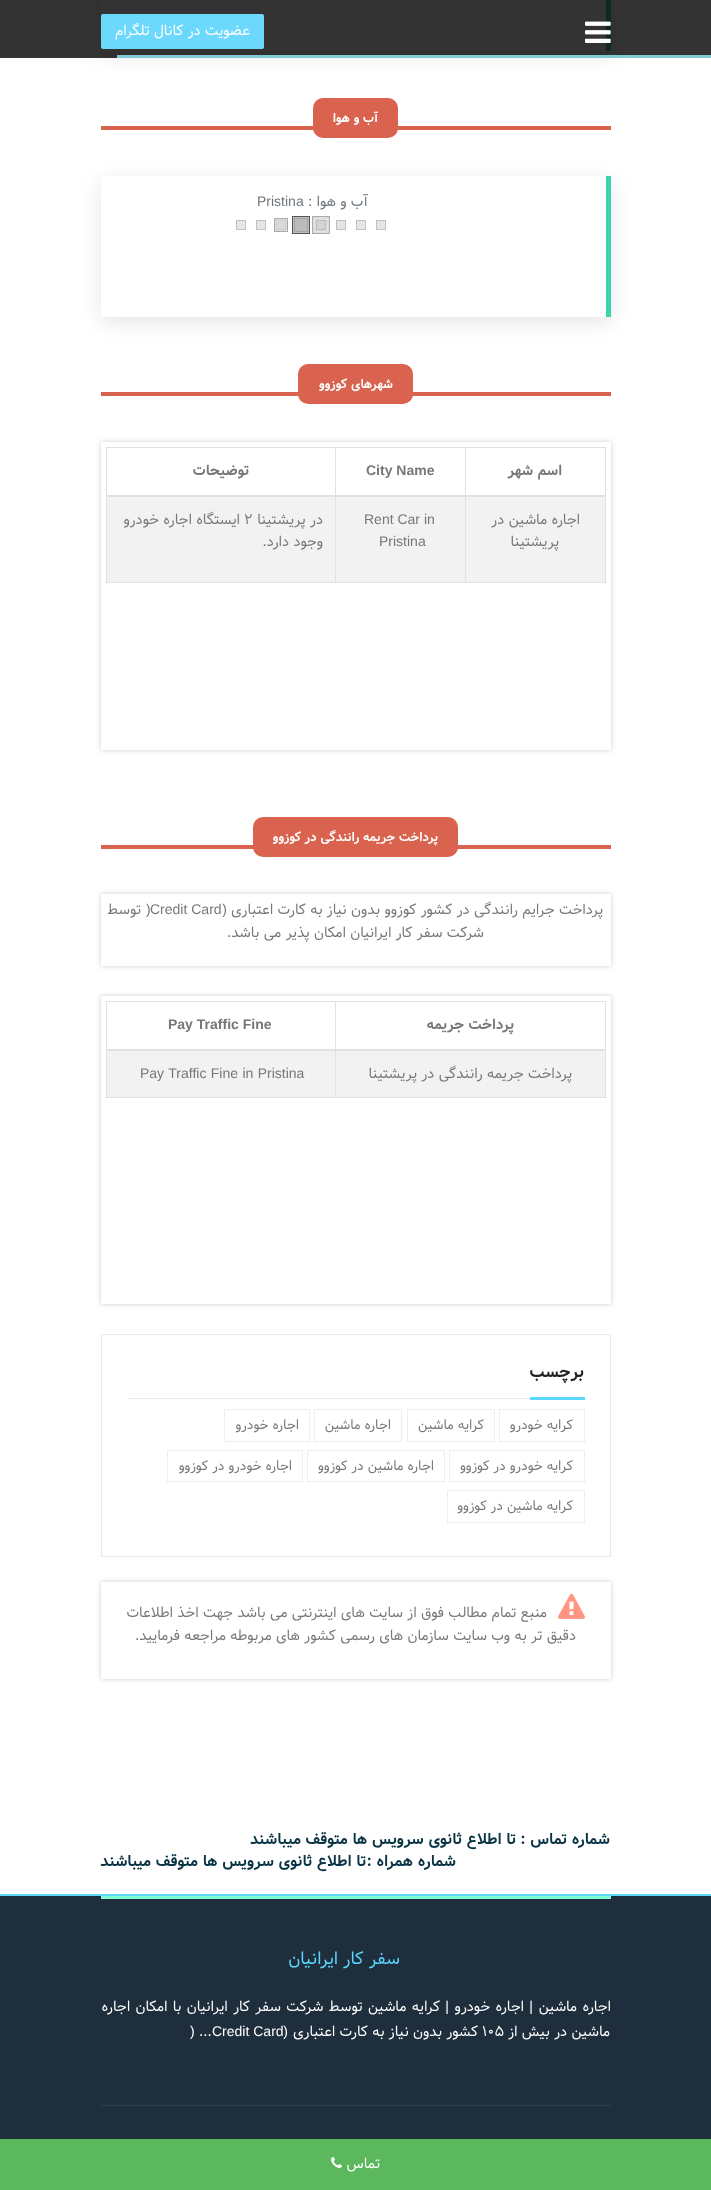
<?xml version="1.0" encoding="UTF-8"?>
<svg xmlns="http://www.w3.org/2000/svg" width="711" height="2190">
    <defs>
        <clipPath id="clip1"><path d="M 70 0 H 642 V 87 H 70 Z M 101 -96 H 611 V 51 H 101 Z" clip-rule="evenodd"/></clipPath>
        <filter id="blur1" x="-50%" y="-200%" width="200%" height="500%"><feGaussianBlur stdDeviation="10"/></filter>
        <linearGradient id="g1" gradientUnits="userSpaceOnUse" x1="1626" y1="-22" x2="606" y2="-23"><stop offset="0" stop-color="#FFFFFF"/><stop offset="0.5" stop-color="#FFFFFF"/><stop offset="0.5" stop-color="#4CB8C4"/><stop offset="1" stop-color="#3CD3AD"/></linearGradient>
        <clipPath id="clip2"><path d="M 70 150 H 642 V 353 H 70 Z M 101 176 H 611 V 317 H 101 Z" clip-rule="evenodd"/></clipPath>
        <linearGradient id="g2" gradientUnits="userSpaceOnUse" x1="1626" y1="247" x2="606" y2="246"><stop offset="0" stop-color="#FFFFFF"/><stop offset="0.5" stop-color="#FFFFFF"/><stop offset="0.5" stop-color="#4CB8C4"/><stop offset="1" stop-color="#3CD3AD"/></linearGradient>
        <clipPath id="clip3"><path d="M 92 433 H 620 V 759 H 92 Z M 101 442 H 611 V 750 H 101 Z" clip-rule="evenodd"/></clipPath>
        <filter id="blur2" x="-50%" y="-200%" width="200%" height="500%"><feGaussianBlur stdDeviation="2.5"/></filter>
        <clipPath id="clip4"><path d="M 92 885 H 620 V 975 H 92 Z M 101 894 H 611 V 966 H 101 Z" clip-rule="evenodd"/></clipPath>
        <clipPath id="clip5"><path d="M 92 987 H 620 V 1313 H 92 Z M 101 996 H 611 V 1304 H 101 Z" clip-rule="evenodd"/></clipPath>
        <clipPath id="clip6"><path d="M 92 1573 H 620 V 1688 H 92 Z M 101 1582 H 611 V 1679 H 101 Z" clip-rule="evenodd"/></clipPath>
    </defs>
    <rect width="100%" height="100%" fill="#FFFFFF"/>
    <g clip-path="url(#clip1)">
        <rect x="101" y="-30" width="510" height="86" fill="#000000" fill-opacity="0.1" filter="url(#blur1)"/>
    </g>
    <rect x="606" y="0" width="5" height="51" fill="url(#g1)"/>
    <rect x="0" y="0" width="711" height="58" fill="#000000" fill-opacity="0.8"/>
    <image x="585" y="21" width="26" height="22" href="img_01.png"/>
    <rect x="101" y="14" width="163" height="35" rx="2" fill="#6CD8FC"/>
    <text x="250" y="35" font-family="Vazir" font-size="14" direction="rtl" fill="#FFFFFF">عضویت در کانال تلگرام</text>
    <rect x="117" y="55" width="594" height="3" fill="#7FCAD4"/>
    <rect x="101" y="126" width="510" height="4" fill="#D9634E"/>
    <rect x="313" y="98" width="85" height="40" rx="10" fill="#D9634E"/>
    <text x="378" y="122" font-family="Vazir" font-size="12" font-weight="700" direction="rtl" fill="#FFFFFF">آب و هوا</text>
    <g clip-path="url(#clip2)">
        <rect x="101" y="181" width="510" height="141" fill="#000000" fill-opacity="0.1" filter="url(#blur1)"/>
    </g>
    <rect x="606" y="176" width="5" height="141" fill="url(#g2)"/>
    <text x="368" y="206" font-family="Vazir" font-size="14" direction="rtl" fill="#6C757D">آب و هوا :</text>
    <text x="257" y="206" font-family="Liberation Sans" font-size="14" fill="#6C757D">Pristina</text>
    <image x="236" y="216" width="150" height="18" href="img_02.png"/>
    <rect x="101" y="392" width="510" height="4" fill="#D9634E"/>
    <rect x="298" y="364" width="115" height="40" rx="10" fill="#D9634E"/>
    <text x="393" y="388" font-family="Vazir" font-size="12" font-weight="700" direction="rtl" fill="#FFFFFF">شهرهای کوزوو</text>
    <g clip-path="url(#clip3)">
        <rect x="101" y="442" width="510" height="308" fill="#000000" fill-opacity="0.2" filter="url(#blur2)"/>
    </g>
    <rect x="106" y="447" width="500" height="1" fill="#DEE2E6"/>
    <rect x="605" y="447" width="1" height="136" fill="#DEE2E6"/>
    <rect x="106" y="582" width="500" height="1" fill="#DEE2E6"/>
    <rect x="106" y="447" width="1" height="136" fill="#DEE2E6"/>
    <text x="562" y="475" font-family="Vazir" font-size="14" font-weight="700" direction="rtl" fill="#777777">اسم شهر</text>
    <text x="366" y="475" font-family="Liberation Sans" font-size="14" font-weight="700" fill="#777777">City Name</text>
    <rect x="107" y="497" width="498" height="85" fill="#F2F2F2"/>
    <rect x="465" y="447" width="1" height="136" fill="#DEE2E6"/>
    <rect x="335" y="447" width="1" height="136" fill="#DEE2E6"/>
    <rect x="106" y="495" width="500" height="2" fill="#DEE2E6"/>
    <text x="249" y="475" font-family="Vazir" font-size="14" font-weight="700" direction="rtl" fill="#777777">توضیحات</text>
    <text x="580" y="524" font-family="Vazir" font-size="14" direction="rtl" fill="#777777">اجاره ماشین در</text>
    <text x="559" y="546" font-family="Vazir" font-size="14" direction="rtl" fill="#777777">پریشتینا</text>
    <text x="364" y="524" font-family="Liberation Sans" font-size="14" fill="#777777">Rent Car in</text>
    <text x="379" y="546" font-family="Liberation Sans" font-size="14" fill="#777777">Pristina</text>
    <text x="323" y="524" font-family="Vazir" font-size="14" direction="rtl" fill="#777777">در پریشتینا</text>
    <text x="244" y="524" font-family="Vazir" font-size="14" fill="#777777">2</text>
    <text x="240" y="524" font-family="Vazir" font-size="14" direction="rtl" fill="#777777">ایستگاه اجاره خودرو</text>
    <text x="323" y="546" font-family="Vazir" font-size="14" direction="rtl" fill="#777777">وجود دارد.</text>
    <rect x="101" y="845" width="510" height="4" fill="#D9634E"/>
    <rect x="253" y="817" width="205" height="40" rx="10" fill="#D9634E"/>
    <text x="438" y="841" font-family="Vazir" font-size="12" font-weight="700" direction="rtl" fill="#FFFFFF">پرداخت جریمه رانندگی در کوزوو</text>
    <g clip-path="url(#clip4)">
        <rect x="101" y="894" width="510" height="72" fill="#000000" fill-opacity="0.2" filter="url(#blur2)"/>
    </g>
    <text x="603" y="914" font-family="Vazir" font-size="14" direction="rtl" fill="#777777">پرداخت جرایم رانندگی در کشور کوزوو</text>
    <text x="380" y="914" font-family="Vazir" font-size="14" direction="rtl" fill="#777777">بدون نیاز به کارت اعتباری</text>
    <text x="227" y="914" font-family="Liberation Sans" font-size="14" direction="rtl" fill="#777777">(</text>
    <text x="150" y="914" font-family="Liberation Sans" font-size="14" fill="#777777">Credit Card</text>
    <text x="146" y="914" font-family="Liberation Sans" font-size="14" fill="#777777">)</text>
    <text x="141" y="914" font-family="Vazir" font-size="14" direction="rtl" fill="#777777">توسط</text>
    <text x="484" y="937" font-family="Vazir" font-size="14" direction="rtl" fill="#777777">شرکت سفر کار ایرانیان امکان پذیر می باشد.</text>
    <g clip-path="url(#clip5)">
        <rect x="101" y="996" width="510" height="308" fill="#000000" fill-opacity="0.2" filter="url(#blur2)"/>
    </g>
    <rect x="106" y="1001" width="500" height="1" fill="#DEE2E6"/>
    <rect x="605" y="1001" width="1" height="97" fill="#DEE2E6"/>
    <rect x="106" y="1097" width="500" height="1" fill="#DEE2E6"/>
    <rect x="106" y="1001" width="1" height="97" fill="#DEE2E6"/>
    <text x="514" y="1029" font-family="Vazir" font-size="14" font-weight="700" direction="rtl" fill="#777777">پرداخت جریمه</text>
    <rect x="107" y="1051" width="498" height="46" fill="#F2F2F2"/>
    <rect x="335" y="1001" width="1" height="97" fill="#DEE2E6"/>
    <rect x="106" y="1049" width="500" height="2" fill="#DEE2E6"/>
    <text x="168" y="1029" font-family="Liberation Sans" font-size="14" font-weight="700" fill="#777777">Pay Traffic Fine</text>
    <text x="572" y="1078" font-family="Vazir" font-size="14" direction="rtl" fill="#777777">پرداخت جریمه رانندگی در پریشتینا</text>
    <text x="140" y="1078" word-spacing="0.5" font-family="Liberation Sans" font-size="14" fill="#777777">Pay Traffic Fine in Pristina</text>
    <rect x="101.5" y="1334.5" width="509" height="222" fill="none" stroke="#E8E8E8"/>
    <rect x="127" y="1398" width="403" height="1" fill="#E8E8E8"/>
    <rect x="530" y="1397" width="55" height="3" fill="#5BD8FF"/>
    <text x="584" y="1377" font-family="Vazir" font-size="16" font-weight="700" direction="rtl" fill="#222222">برچسب</text>
    <rect x="499.5" y="1409.5" width="85" height="32" fill="none" stroke="#EEEEEE"/>
    <text x="573" y="1429" font-family="Vazir" font-size="13" direction="rtl" fill="#777777">کرایه خودرو</text>
    <rect x="407.5" y="1409.5" width="87" height="32" fill="none" stroke="#EEEEEE"/>
    <text x="484" y="1429" font-family="Vazir" font-size="13" direction="rtl" fill="#777777">کرایه ماشین</text>
    <rect x="314.5" y="1409.5" width="87" height="32" fill="none" stroke="#EEEEEE"/>
    <text x="391" y="1429" font-family="Vazir" font-size="13" direction="rtl" fill="#777777">اجاره ماشین</text>
    <rect x="224.5" y="1409.5" width="85" height="32" fill="none" stroke="#EEEEEE"/>
    <text x="299" y="1429" font-family="Vazir" font-size="13" direction="rtl" fill="#777777">اجاره خودرو</text>
    <rect x="449.5" y="1450.5" width="135" height="31" fill="none" stroke="#EEEEEE"/>
    <text x="573" y="1470" font-family="Vazir" font-size="13" direction="rtl" fill="#777777">کرایه خودرو در کوزوو</text>
    <rect x="307.5" y="1450.5" width="137" height="31" fill="none" stroke="#EEEEEE"/>
    <text x="434" y="1470" font-family="Vazir" font-size="13" direction="rtl" fill="#777777">اجاره ماشین در کوزوو</text>
    <rect x="167.5" y="1450.5" width="135" height="31" fill="none" stroke="#EEEEEE"/>
    <text x="292" y="1470" font-family="Vazir" font-size="13" direction="rtl" fill="#777777">اجاره خودرو در کوزوو</text>
    <rect x="447.5" y="1490.5" width="137" height="32" fill="none" stroke="#EEEEEE"/>
    <text x="573" y="1510" font-family="Vazir" font-size="13" direction="rtl" fill="#777777">کرایه ماشین در کوزوو</text>
    <g clip-path="url(#clip6)">
        <rect x="101" y="1582" width="510" height="97" fill="#000000" fill-opacity="0.2" filter="url(#blur2)"/>
    </g>
    <image x="558" y="1593" width="27" height="26" href="img_03.png"/>
    <text x="547" y="1617" font-family="Vazir" font-size="14" direction="rtl" fill="#777777">منبع تمام مطالب فوق از سایت های اینترنتی می باشد جهت اخذ اطلاعات</text>
    <text x="576" y="1640" font-family="Vazir" font-size="14" direction="rtl" fill="#777777">دقیق تر به وب سایت سازمان های رسمی کشور های مربوطه مراجعه فرمایید.</text>
    <text x="610" y="1844" font-family="Vazir" font-size="15" font-weight="700" direction="rtl" fill="#0A3446">شماره تماس : تا اطلاع ثانوی سرویس ها متوقف میباشند</text>
    <text x="456" y="1866" font-family="Vazir" font-size="15" font-weight="700" direction="rtl" fill="#0A3446">شماره همراه :</text>
    <text x="366" y="1866" font-family="Vazir" font-size="15" font-weight="700" direction="rtl" fill="#0A3446">تا اطلاع ثانوی سرویس ها متوقف میباشند</text>
    <rect x="0" y="1896" width="711" height="243" fill="#1F2E3C"/>
    <rect x="0" y="1894" width="711" height="2" fill="#5BD8FF"/>
    <rect x="101" y="1896" width="510" height="3" fill="#7FFFD4"/>
    <rect x="101" y="2105" width="510" height="1" fill="#2A3E50"/>
    <text x="400" y="1964" font-family="Vazir" font-size="17" direction="rtl" fill="#5BD8FF">سفر کار ایرانیان</text>
    <text x="611" y="2011" word-spacing="1" font-family="Vazir" font-size="14" direction="rtl" fill="#FFFFFF">اجاره ماشین</text>
    <text x="533" y="2011" font-family="Liberation Sans" font-size="14" direction="rtl" fill="#FFFFFF">|</text>
    <text x="524" y="2011" word-spacing="1" font-family="Vazir" font-size="14" direction="rtl" fill="#FFFFFF">اجاره خودرو</text>
    <text x="449" y="2011" font-family="Liberation Sans" font-size="14" direction="rtl" fill="#FFFFFF">|</text>
    <text x="440" y="2011" word-spacing="1" font-family="Vazir" font-size="14" direction="rtl" fill="#FFFFFF">کرایه ماشین توسط شرکت سفر کار ایرانیان با امکان اجاره</text>
    <text x="610" y="2036" font-family="Vazir" font-size="14" direction="rtl" fill="#FFFFFF">ماشین در بیش از</text>
    <text x="482" y="2036" font-family="Vazir" font-size="14" fill="#FFFFFF">105</text>
    <text x="478" y="2036" font-family="Vazir" font-size="14" direction="rtl" fill="#FFFFFF">کشور بدون نیاز به کارت اعتباری</text>
    <text x="288" y="2036" font-family="Liberation Sans" font-size="14" direction="rtl" fill="#FFFFFF">(</text>
    <text x="212" y="2036" font-family="Liberation Sans" font-size="14" fill="#FFFFFF">Credit Card</text>
    <text x="199" y="2036" font-family="Vazir" font-size="14" fill="#FFFFFF">...</text>
    <text x="190" y="2036" font-family="Liberation Sans" font-size="14" fill="#FFFFFF">)</text>
    <rect x="0" y="2139" width="711" height="51" fill="#5CB85C"/>
    <text x="380" y="2168" font-family="Vazir" font-size="14" direction="rtl" fill="#FFFFFF">تماس</text>
    <image x="331" y="2157" width="11" height="11" href="img_04.png"/>
</svg>
